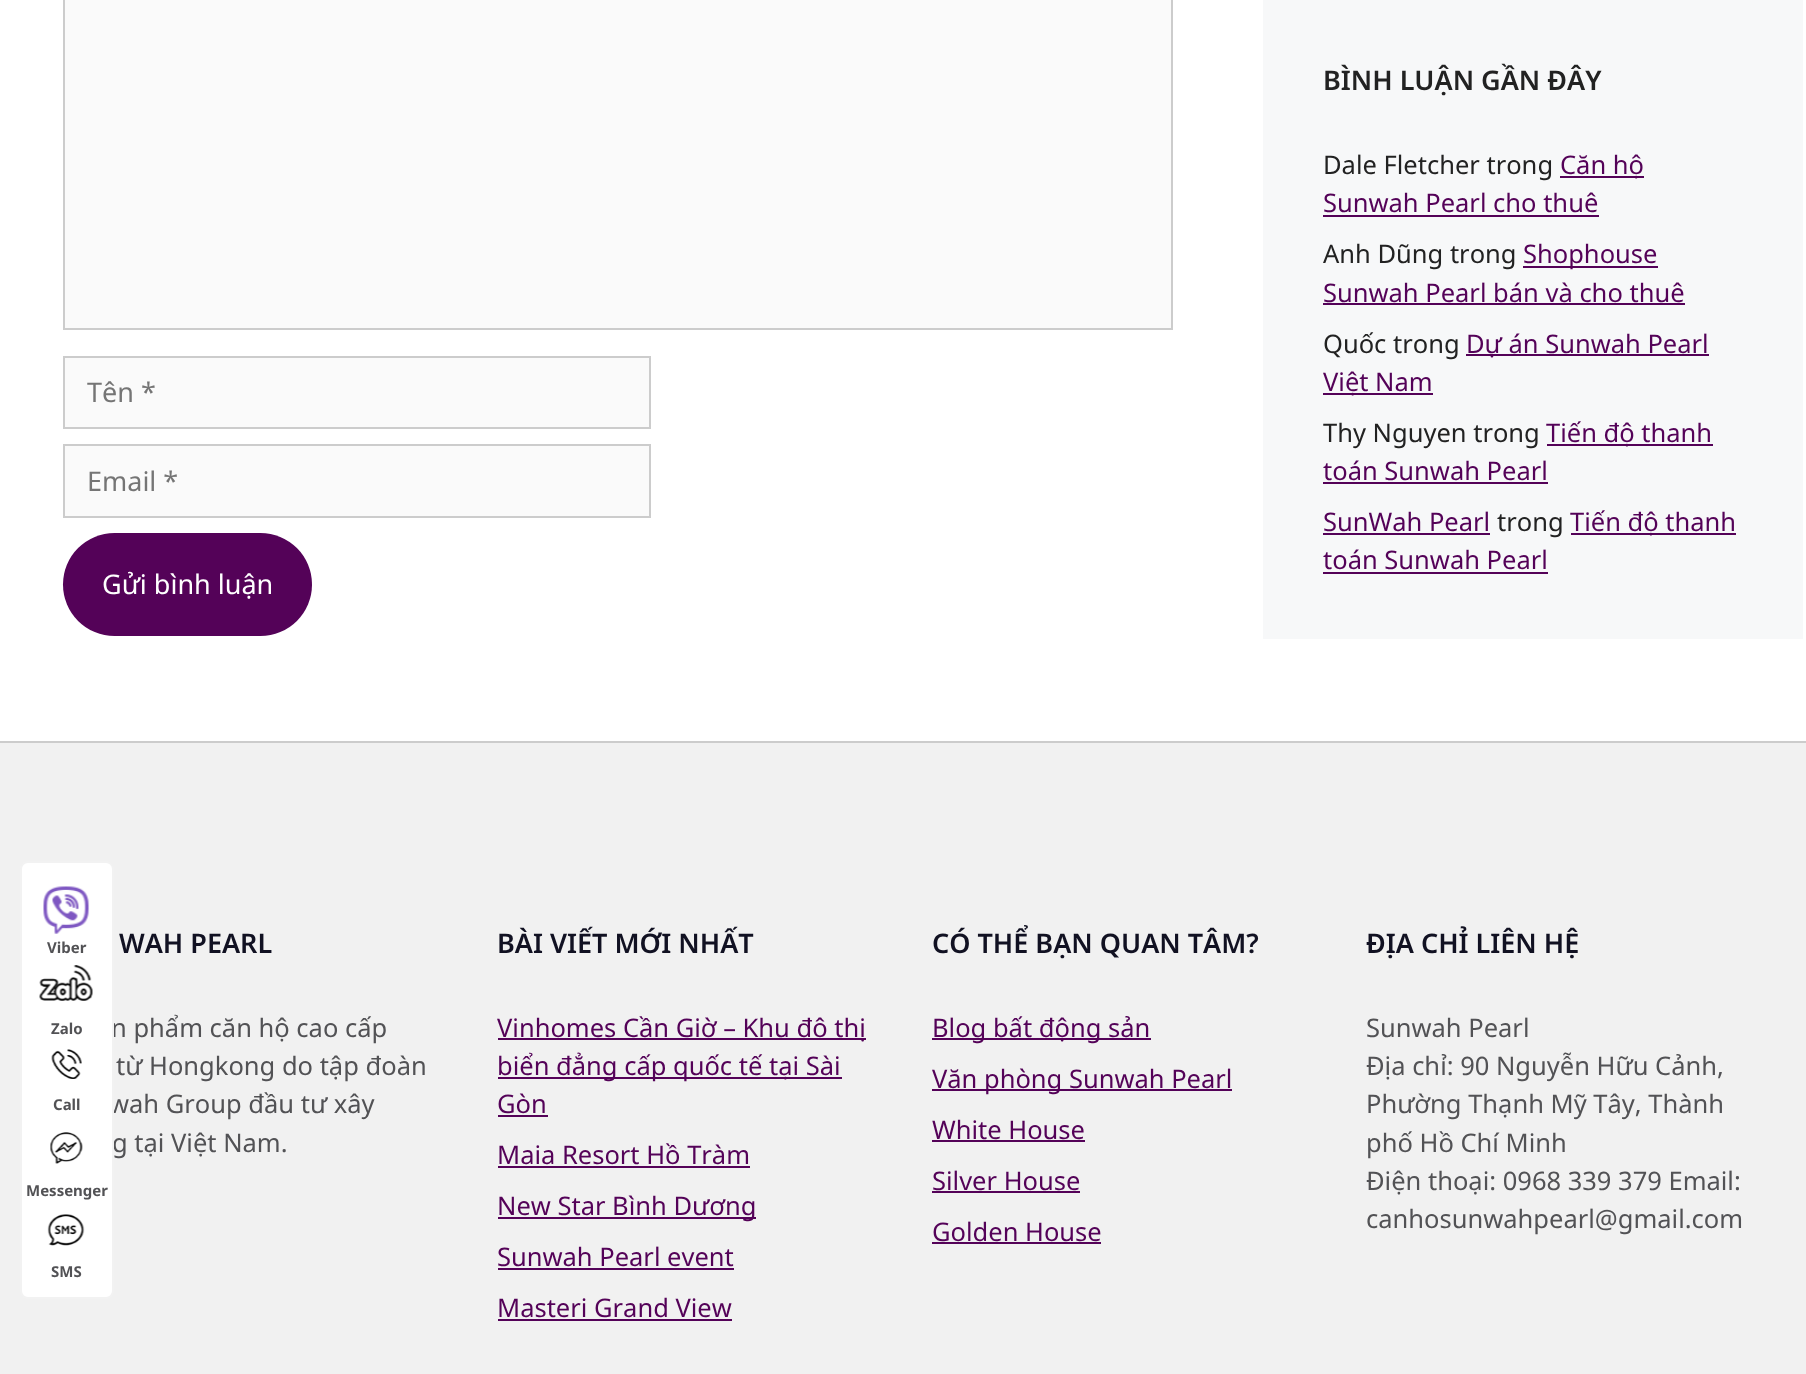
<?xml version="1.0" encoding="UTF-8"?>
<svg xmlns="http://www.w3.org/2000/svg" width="1806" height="1374">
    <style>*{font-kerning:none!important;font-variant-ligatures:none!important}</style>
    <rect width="100%" height="100%" fill="#FFFFFF"/>
    <rect x="64" y="-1" width="1108" height="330" fill="#FAFAFA" stroke="#CCCCCC" stroke-width="2"/>
    <rect x="64" y="357" width="586" height="71" fill="#FAFAFA" stroke="#CCCCCC" stroke-width="2"/>
    <text x="87" y="402" font-family="Noto Sans" font-size="27" fill="#757575">Tên *</text>
    <rect x="64" y="445" width="586" height="72" fill="#FAFAFA" stroke="#CCCCCC" stroke-width="2"/>
    <text x="87" y="491" font-family="Noto Sans" font-size="27" fill="#757575">Email *</text>
    <rect x="63" y="533" width="249" height="103" rx="51.5" fill="#540258"/>
    <text x="102" y="594" font-family="Noto Sans" font-size="27" fill="#FFFFFF">Gửi bình luận</text>
    <rect x="1263" y="0" width="540" height="639" fill="#F7F8F9"/>
    <text x="1323" y="90" font-family="Noto Sans" font-size="27" font-weight="600" fill="#222222">BÌNH LUẬN GẦN ĐÂY</text>
    <text x="1323" y="174" font-family="Noto Sans" font-size="25.5" fill="#222222">Dale Fletcher trong</text>
    <rect x="1560" y="176" width="84" height="2" fill="#540258"/>
    <text x="1560" y="174" font-family="Noto Sans" font-size="25.5" fill="#540258">Căn hộ</text>
    <text x="1323" y="212" font-family="Noto Sans" font-size="25.5" fill="#540258">Sunwah Pearl cho thuê</text>
    <rect x="1323" y="215" width="276" height="2" fill="#540258"/>
    <text x="1323" y="263" font-family="Noto Sans" font-size="25.5" fill="#222222">Anh Dũng trong</text>
    <rect x="1523" y="266" width="135" height="2" fill="#540258"/>
    <text x="1523" y="263" font-family="Noto Sans" font-size="25.5" fill="#540258">Shophouse</text>
    <text x="1323" y="302" font-family="Noto Sans" font-size="25.5" fill="#540258">Sunwah Pearl bán và cho thuê</text>
    <rect x="1323" y="303" width="362" height="2" fill="#540258"/>
    <text x="1323" y="353" font-family="Noto Sans" font-size="25.5" fill="#222222">Quốc trong</text>
    <rect x="1466" y="354" width="243" height="2" fill="#540258"/>
    <text x="1466" y="353" font-family="Noto Sans" font-size="25.5" fill="#540258">Dự án Sunwah Pearl</text>
    <rect x="1323" y="393" width="110" height="2" fill="#540258"/>
    <text x="1323" y="391" font-family="Noto Sans" font-size="25.5" fill="#540258">Việt Nam</text>
    <text x="1323" y="442" font-family="Noto Sans" font-size="25.5" fill="#222222">Thy Nguyen trong</text>
    <rect x="1547" y="444" width="166" height="2" fill="#540258"/>
    <text x="1546" y="442" font-family="Noto Sans" font-size="25.5" fill="#540258">Tiến độ thanh</text>
    <text x="1323" y="480" font-family="Noto Sans" font-size="25.5" fill="#540258">toán Sunwah Pearl</text>
    <rect x="1323" y="482" width="225" height="2" fill="#540258"/>
    <text x="1323" y="531" font-family="Noto Sans" font-size="25.5" fill="#540258">SunWah Pearl</text>
    <rect x="1323" y="533" width="167" height="2" fill="#540258"/>
    <text x="1497" y="531" font-family="Noto Sans" font-size="25.5" fill="#222222">trong</text>
    <rect x="1571" y="533" width="165" height="2" fill="#540258"/>
    <text x="1570" y="531" font-family="Noto Sans" font-size="25.5" fill="#540258">Tiến độ thanh</text>
    <text x="1323" y="569" font-family="Noto Sans" font-size="25.5" fill="#540258">toán Sunwah Pearl</text>
    <rect x="1323" y="572" width="225" height="2" fill="#540258"/>
    <rect x="0" y="743" width="1806" height="631" fill="#F1F1F1"/>
    <text x="111" y="1037" font-family="Noto Sans" font-size="25.5" fill="#525255">n phẩm căn hộ cao cấp</text>
    <text x="109" y="1113" font-family="Noto Sans" font-size="25.5" fill="#525255">wah Group đầu tư xây</text>
    <text x="112" y="1152" font-family="Noto Sans" font-size="25.5" fill="#525255">g tại Việt Nam.</text>
    <rect x="21" y="862" width="92" height="436" rx="7" fill="#FFFFFF" stroke="#F2F2F2" stroke-width="2"/>
    <image x="43" y="886" width="47" height="48" href="img_01.png"/>
    <text x="47" y="953" font-family="Noto Sans" font-size="15" font-weight="700" fill="#525255">Viber</text>
    <image x="39" y="965" width="54" height="36" href="img_02.png"/>
    <text x="51" y="1034" font-family="Noto Sans" font-size="15" font-weight="700" fill="#525255">Zalo</text>
    <image x="51" y="1049" width="31" height="30" href="img_03.png"/>
    <text x="53" y="1110" font-family="Noto Sans" font-size="15" font-weight="700" fill="#525255">Call</text>
    <image x="50" y="1132" width="33" height="32" href="img_04.png"/>
    <text x="26" y="1196" font-family="Noto Sans" font-size="15" font-weight="700" fill="#525255">Messenger</text>
    <image x="47" y="1214" width="38" height="32" href="img_05.png"/>
    <text x="51" y="1277" font-family="Noto Sans" font-size="15" font-weight="700" fill="#525255">SMS</text>
    <rect x="0" y="741" width="1806" height="2" fill="#CCCCCC"/>
    <text x="119" y="953" font-family="Noto Sans" font-size="27" font-weight="600" fill="#111122">WAH PEARL</text>
    <text x="116" y="1075" font-family="Noto Sans" font-size="25.5" fill="#525255">từ Hongkong do tập đoàn</text>
    <text x="497" y="953" font-family="Noto Sans" font-size="27" font-weight="600" fill="#111122">BÀI VIẾT MỚI NHẤT</text>
    <rect x="498" y="1038" width="368" height="2" fill="#540258"/>
    <text x="497" y="1037" font-family="Noto Sans" font-size="25.5" fill="#540258">Vinhomes Cần Giờ – Khu đô thị</text>
    <rect x="498" y="1077" width="344" height="2" fill="#540258"/>
    <text font-family="Noto Sans" font-size="25.5" fill="#540258">
        <tspan x="497" y="1075">biển đẳng cấp quốc tế tại Sài</tspan>
        <tspan x="497" y="1113">Gòn</tspan>
    </text>
    <rect x="498" y="1115" width="50" height="2" fill="#540258"/>
    <text x="497" y="1164" font-family="Noto Sans" font-size="25.5" fill="#540258">Maia Resort Hồ Tràm</text>
    <rect x="498" y="1166" width="252" height="2" fill="#540258"/>
    <rect x="498" y="1217" width="258" height="2" fill="#540258"/>
    <text x="497" y="1215" font-family="Noto Sans" font-size="25.5" fill="#540258">New Star Bình Dương</text>
    <text x="497" y="1266" font-family="Noto Sans" font-size="25.5" fill="#540258">Sunwah Pearl event</text>
    <rect x="498" y="1268" width="236" height="2" fill="#540258"/>
    <text x="497" y="1317" font-family="Noto Sans" font-size="25.5" fill="#540258">Masteri Grand View</text>
    <rect x="498" y="1319" width="234" height="2" fill="#540258"/>
    <text x="932" y="953" font-family="Noto Sans" font-size="27" font-weight="600" fill="#111122">CÓ THỂ BẠN QUAN TÂM?</text>
    <rect x="932" y="1038" width="219" height="2" fill="#540258"/>
    <text x="932" y="1037" font-family="Noto Sans" font-size="25.5" fill="#540258">Blog bất động sản</text>
    <rect x="932" y="1089" width="300" height="2" fill="#540258"/>
    <text x="932" y="1088" font-family="Noto Sans" font-size="25.5" fill="#540258">Văn phòng Sunwah Pearl</text>
    <text x="932" y="1139" font-family="Noto Sans" font-size="25.5" fill="#540258">White House</text>
    <rect x="932" y="1140" width="153" height="2" fill="#540258"/>
    <text x="932" y="1190" font-family="Noto Sans" font-size="25.5" fill="#540258">Silver House</text>
    <rect x="932" y="1191" width="148" height="2" fill="#540258"/>
    <text x="932" y="1241" font-family="Noto Sans" font-size="25.5" fill="#540258">Golden House</text>
    <rect x="932" y="1242" width="169" height="2" fill="#540258"/>
    <text x="1366" y="953" font-family="Noto Sans" font-size="27" font-weight="600" fill="#111122">ĐỊA CHỈ LIÊN HỆ</text>
    <text font-family="Noto Sans" font-size="25.5" fill="#525255">
        <tspan x="1366" y="1037">Sunwah Pearl</tspan>
        <tspan x="1366" y="1075">Địa chỉ: 90 Nguyễn Hữu Cảnh,</tspan>
        <tspan x="1366" y="1113">Phường Thạnh Mỹ Tây, Thành</tspan>
        <tspan x="1366" y="1152">phố Hồ Chí Minh</tspan>
        <tspan x="1366" y="1190">Điện thoại: 0968 339 379 Email:</tspan>
        <tspan x="1366" y="1228">canhosunwahpearl@gmail.com</tspan>
    </text>
</svg>
